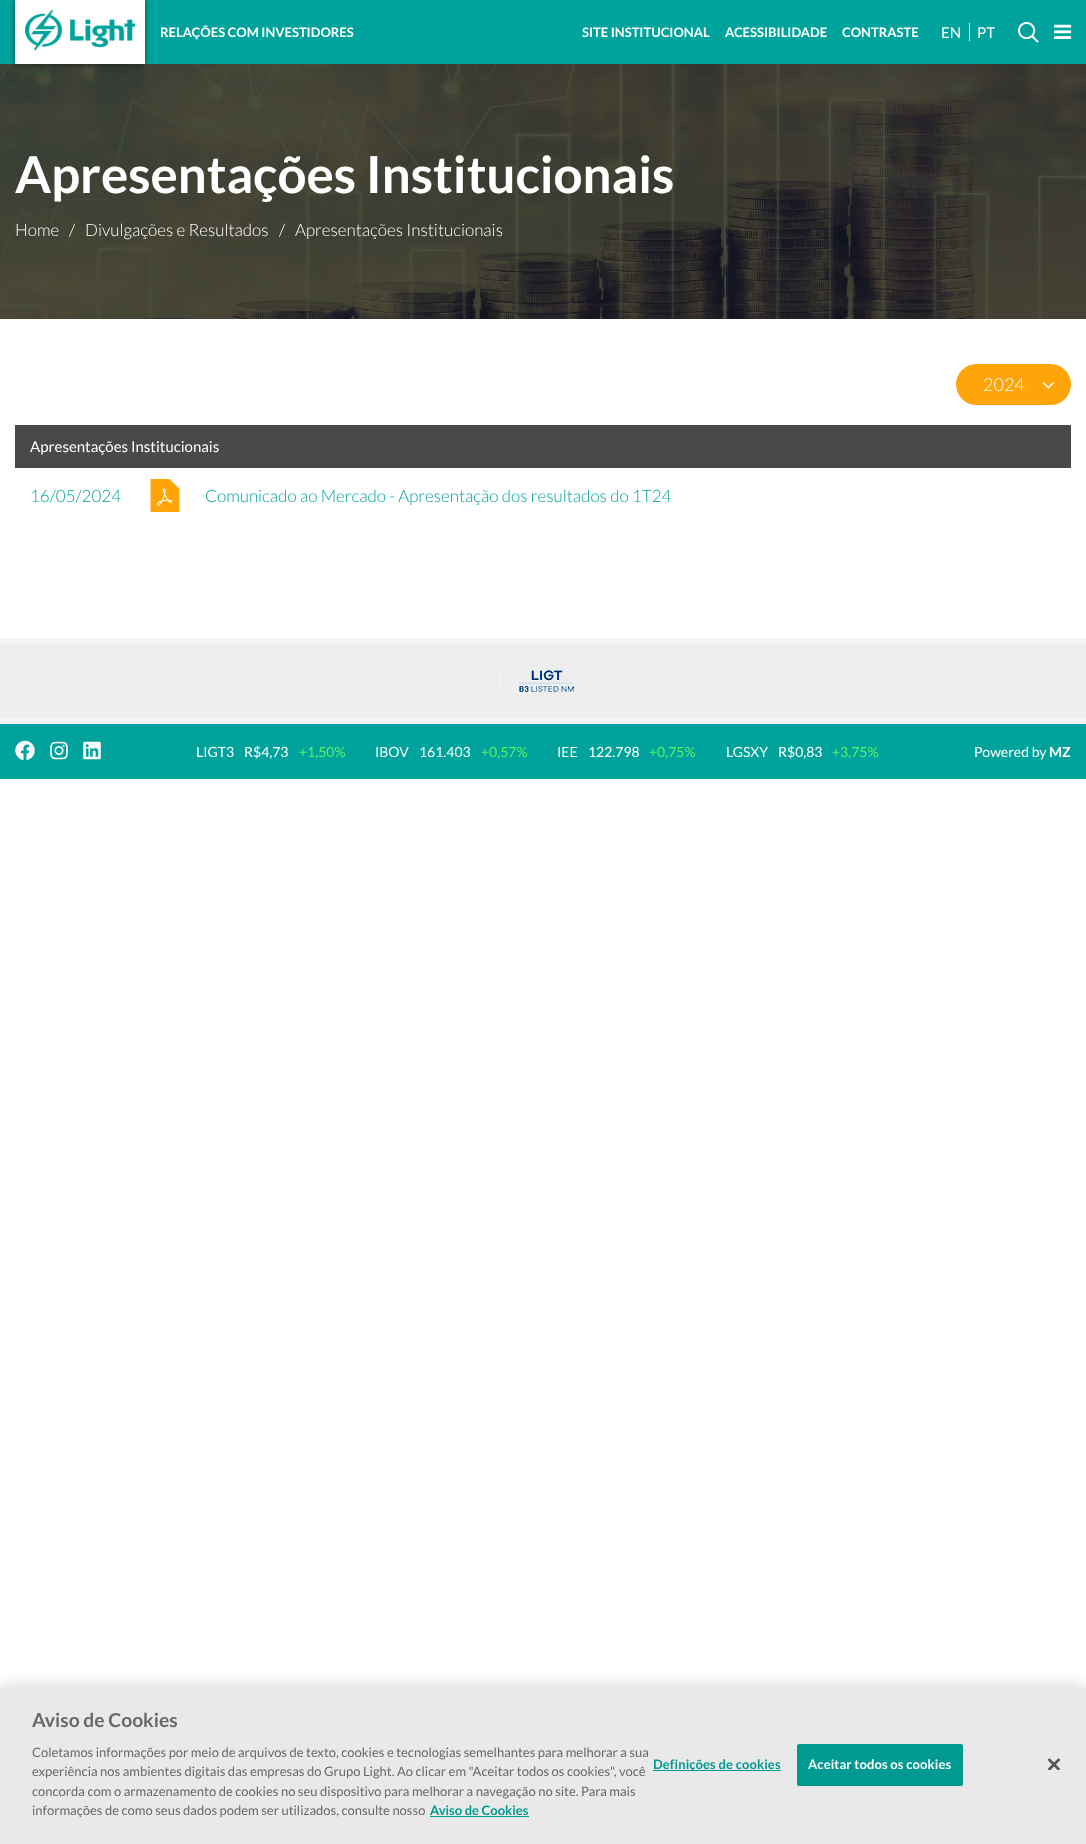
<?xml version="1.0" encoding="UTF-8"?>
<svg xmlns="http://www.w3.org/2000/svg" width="1086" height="1844">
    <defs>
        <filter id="blur1" x="-50%" y="-200%" width="200%" height="500%"><feGaussianBlur stdDeviation="3"/></filter>
        <filter id="blur2" x="-50%" y="-200%" width="200%" height="500%"><feGaussianBlur stdDeviation="9"/></filter>
    </defs>
    <rect width="100%" height="100%" fill="#FFFFFF"/>
    <rect x="0" y="0" width="1086" height="64" fill="#00A39B"/>
    <image x="0" y="64" width="1086" height="255" href="img_04.png"/>
    <rect x="15" y="0" width="130" height="64" fill="#000000" fill-opacity="0.5" filter="url(#blur1)"/>
    <rect x="15" y="0" width="130" height="64" fill="#FFFFFF"/>
    <image x="25" y="10" width="110" height="41" href="img_01.png"/>
    <text x="160" y="37" font-family="Lato" font-size="13" font-weight="700" fill="#FFFFFF">RELAÇÕES COM INVESTIDORES</text>
    <text x="582" y="37" font-family="Lato" font-size="13" font-weight="700" fill="#FFFFFF">SITE INSTITUCIONAL</text>
    <text x="725" y="37" font-family="Lato" font-size="13" font-weight="700" fill="#FFFFFF">ACESSIBILIDADE</text>
    <text x="842" y="37" font-family="Lato" font-size="13" font-weight="700" fill="#FFFFFF">CONTRASTE</text>
    <text x="941" y="38" font-family="Lato" font-size="15" fill="#FFFFFF">EN</text>
    <rect x="969" y="23" width="1" height="18" fill="#FFFFFF"/>
    <text x="977" y="38" font-family="Lato" font-size="15" fill="#FFFFFF">PT</text>
    <image x="1018" y="22" width="21" height="21" href="img_02.png"/>
    <image x="1054" y="24" width="18" height="15" href="img_03.png"/>
    <text x="15" y="193" font-family="Lato" font-size="51" font-weight="700" fill="#FFFFFF">Apresentações Institucionais</text>
    <text x="15" y="236" font-family="Lato" font-size="17" font-weight="300" fill="#FFFFFF">Home</text>
    <text x="69" y="236" font-family="Lato" font-size="17" font-weight="300" fill="#FFFFFF">/</text>
    <text x="85" y="236" font-family="Lato" font-size="17" font-weight="300" fill="#FFFFFF">Divulgações e Resultados</text>
    <text x="279" y="236" font-family="Lato" font-size="17" font-weight="300" fill="#FFFFFF">/</text>
    <text x="295" y="236" font-family="Lato" font-size="17" font-weight="300" fill="#FFFFFF">Apresentações Institucionais</text>
    <rect x="956" y="364" width="115" height="41" rx="20.5" fill="#FFA409"/>
    <text x="983" y="391" font-family="Lato" font-size="18" font-weight="300" fill="#FFFFFF">2024</text>
    <image x="1042" y="382" width="12" height="7" href="img_05.png"/>
    <rect x="15" y="425" width="1056" height="43" fill="#494949"/>
    <text x="30" y="452" font-family="Lato" font-size="15" fill="#FFFFFF">Apresentações Institucionais</text>
    <text x="30" y="502" font-family="Lato" font-size="17" font-weight="300" fill="#00A39B">16/05/2024</text>
    <image x="150" y="479" width="30" height="33" href="img_06.png"/>
    <text x="205" y="502" font-family="Lato" font-size="17" font-weight="300" fill="#00A39B">Comunicado ao Mercado - Apresentação dos resultados do 1T24</text>
    <rect x="0" y="644" width="1086" height="74" fill="#EEEEEE"/>
    <rect x="0" y="638" width="1086" height="6" fill="#F5F5F5"/>
    <rect x="0" y="718" width="1086" height="6" fill="#F5F5F5"/>
    <image x="500" y="670" width="86" height="22" href="img_07.png"/>
    <rect x="0" y="724" width="1086" height="55" fill="#00A39B"/>
    <image x="15" y="740" width="20" height="20" href="img_08.png"/>
    <image x="50" y="741" width="18" height="19" href="img_09.png"/>
    <image x="83" y="741" width="18" height="19" href="img_10.png"/>
    <text x="196" y="757" font-family="Lato" font-size="14" fill="#FFFFFF">LIGT3</text>
    <text x="244" y="757" font-family="Lato" font-size="14" fill="#FFFFFF">R$4,73</text>
    <text x="299" y="757" font-family="Lato" font-size="14" fill="#59F068">+1,50%</text>
    <text x="375" y="757" font-family="Lato" font-size="14" fill="#FFFFFF">IBOV</text>
    <text x="419" y="757" font-family="Lato" font-size="14" fill="#FFFFFF">161.403</text>
    <text x="481" y="757" font-family="Lato" font-size="14" fill="#59F068">+0,57%</text>
    <text x="557" y="757" font-family="Lato" font-size="14" fill="#FFFFFF">IEE</text>
    <text x="588" y="757" font-family="Lato" font-size="14" fill="#FFFFFF">122.798</text>
    <text x="649" y="757" font-family="Lato" font-size="14" fill="#59F068">+0,75%</text>
    <text x="726" y="757" font-family="Lato" font-size="14" fill="#FFFFFF">LGSXY</text>
    <text x="778" y="757" font-family="Lato" font-size="14" fill="#FFFFFF">R$0,83</text>
    <text x="832" y="757" font-family="Lato" font-size="14" fill="#59F068">+3,75%</text>
    <text x="974" y="757" font-family="Lato" font-size="14" fill="#FFFFFF">Powered by</text>
    <text x="1049" y="757" font-family="Lato" font-size="14" font-weight="700" fill="#FFFFFF">MZ</text>
    <rect x="0" y="1688" width="1086" height="156" fill="#000000" fill-opacity="0.2" filter="url(#blur2)"/>
    <rect x="0" y="1688" width="1086" height="156" fill="#E9E9E9"/>
    <text x="32" y="1727" font-family="Lato" font-size="19.25" font-weight="700" fill="#696969">Aviso de Cookies</text>
    <text font-family="Lato" font-size="13" fill="#696969">
        <tspan x="32" y="1757">Coletamos informações por meio de arquivos de texto, cookies e tecnologias semelhantes para melhorar a sua</tspan>
        <tspan x="32" y="1776">experiência nos ambientes digitais das empresas do Grupo Light. Ao clicar em "Aceitar todos os cookies", você</tspan>
        <tspan x="32" y="1796">concorda com o armazenamento de cookies no seu dispositivo para melhorar a navegação no site. Para mais</tspan>
        <tspan x="32" y="1815">informações de como seus dados podem ser utilizados, consulte nosso</tspan>
    </text>
    <text x="430" y="1815" font-family="Lato" font-size="13" font-weight="700" fill="#009A93">Aviso de Cookies</text>
    <rect x="430" y="1816" width="99" height="1" fill="#009A93"/>
    <rect x="653" y="1770" width="128" height="1" fill="#009A93"/>
    <text x="653" y="1769" font-family="Lato" font-size="13" font-weight="700" letter-spacing="0.1" fill="#009A93">Definições de cookies</text>
    <rect x="797.5" y="1744.5" width="165" height="41" rx="1.5" fill="#009A93" stroke="#009A93"/>
    <text x="808" y="1769" font-family="Lato" font-size="13" font-weight="700" letter-spacing="0.1" fill="#FFFFFF">Aceitar todos os cookies</text>
    <image x="1048" y="1758" width="12" height="12" href="img_11.png"/>
</svg>
